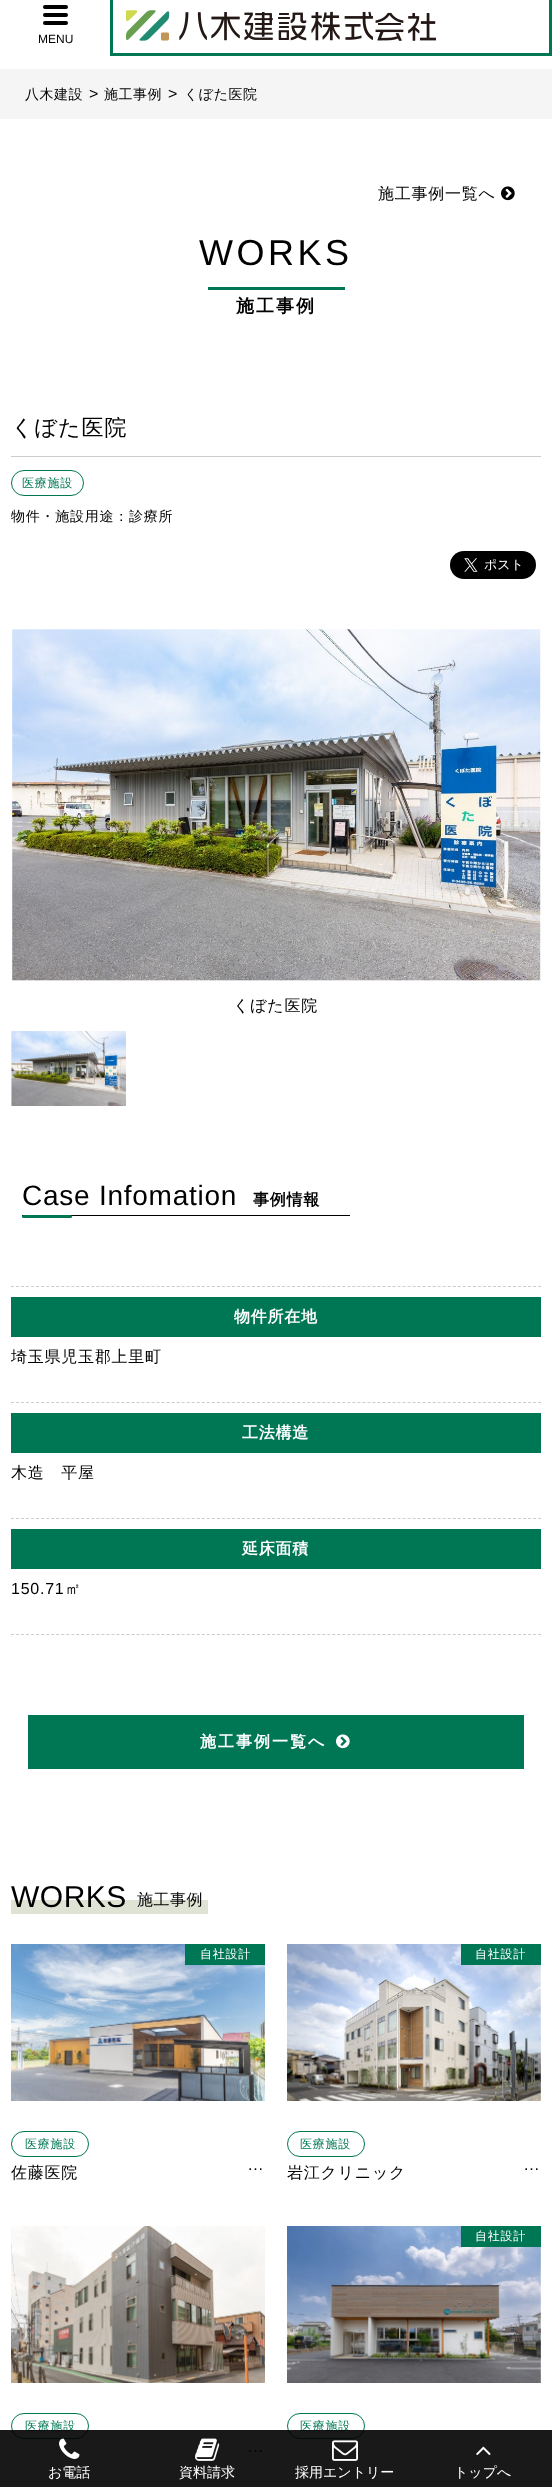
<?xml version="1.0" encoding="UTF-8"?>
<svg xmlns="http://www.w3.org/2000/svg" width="552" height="2487">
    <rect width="100%" height="100%" fill="#FFFFFF"/>
    <rect x="138" y="2430" width="138" height="57" fill="#191919"/>
    <rect x="43" y="5" width="25" height="4" rx="2" fill="#000000"/>
    <rect x="43" y="13" width="25" height="4" rx="2" fill="#000000"/>
    <rect x="43" y="21" width="25" height="4" rx="2" fill="#000000"/>
    <text x="38" y="43" font-family="Liberation Sans" font-size="12" fill="#000000">MENU</text>
    <rect x="549" y="0" width="3" height="56" fill="#007754"/>
    <rect x="110" y="53" width="442" height="3" fill="#007754"/>
    <rect x="110" y="0" width="3" height="56" fill="#007754"/>
    <image x="126" y="10" width="310" height="31" href="img_01.png"/>
    <rect x="0" y="69" width="552" height="50" fill="#F5F5F5"/>
    <text x="25" y="99" font-family="WenQuanYi Zen Hei" font-size="14" font-weight="500" letter-spacing="0.5" fill="#000000">八木建設</text>
    <text x="89" y="99" font-family="Liberation Sans" font-size="16" letter-spacing="0.75" fill="#000000">&gt;</text>
    <text x="104" y="99" font-family="WenQuanYi Zen Hei" font-size="14" font-weight="500" letter-spacing="0.5" fill="#000000">施工事例</text>
    <text x="168" y="99" font-family="Liberation Sans" font-size="16" letter-spacing="0.75" fill="#000000">&gt;</text>
    <text x="184" y="99" font-family="WenQuanYi Zen Hei" font-size="14" font-weight="500" letter-spacing="0.5" fill="#000000">くぼた医院</text>
    <text x="378" y="199" font-family="WenQuanYi Zen Hei" font-size="16" font-weight="500" letter-spacing="0.75" fill="#000000">施工事例一覧へ</text>
    <image x="501" y="186" width="14" height="15" href="img_02.png"/>
    <text x="199" y="265" font-family="Liberation Sans" font-size="36" letter-spacing="3.5" fill="#000000">WORKS</text>
    <rect x="208" y="287" width="137" height="3" fill="#007754"/>
    <text x="236" y="312" font-family="WenQuanYi Zen Hei" font-size="18" font-weight="700" letter-spacing="2" fill="#000000">施工事例</text>
    <rect x="11" y="456" width="530" height="1" fill="#CCCCCC"/>
    <text x="11" y="435" font-family="WenQuanYi Zen Hei" font-size="22" font-weight="500" letter-spacing="1" fill="#000000">くぼた医院</text>
    <rect x="11.5" y="470.5" width="72" height="25" rx="12.5" fill="none" stroke="#007754"/>
    <text x="22" y="487" font-family="WenQuanYi Zen Hei" font-size="12" font-weight="500" letter-spacing="0.75" fill="#007754">医療施設</text>
    <text x="11" y="521" font-family="WenQuanYi Zen Hei" font-size="14" font-weight="500" letter-spacing="0.75" fill="#000000">物件・施設用途：診療所</text>
    <image x="450" y="551" width="86" height="28" href="img_03.png"/>
    <image x="12" y="629" width="529" height="352" href="img_04.png"/>
    <text x="233" y="1011" font-family="WenQuanYi Zen Hei" font-size="16" font-weight="500" letter-spacing="0.75" fill="#000000">くぼた医院</text>
    <rect x="11" y="1031" width="1" height="75" fill="#F5F5F5"/>
    <image x="11" y="1031" width="115" height="75" href="img_05.png"/>
    <rect x="22" y="1215" width="328" height="1" fill="#000000"/>
    <text x="22" y="1205" font-family="Liberation Sans" font-size="28" letter-spacing="0.75" fill="#000000">Case Infomation</text>
    <text x="253" y="1205" font-family="WenQuanYi Zen Hei" font-size="16" font-weight="700" letter-spacing="0.75" fill="#000000">事例情報</text>
    <rect x="22" y="1215" width="50" height="3" rx="1.5" fill="#007754"/>
    <path d="M 11 1634.5 H 541" fill="none" stroke="#CCCCCC" stroke-dasharray="3 2.02"/>
    <path d="M 11 1286.5 H 541" fill="none" stroke="#CCCCCC" stroke-dasharray="3 2.02"/>
    <rect x="11" y="1297" width="530" height="40" fill="#007754"/>
    <text x="234" y="1322" font-family="WenQuanYi Zen Hei" font-size="16" font-weight="700" letter-spacing="0.75" fill="#FFFFFF">物件所在地</text>
    <text x="11" y="1362" font-family="WenQuanYi Zen Hei" font-size="16" font-weight="500" letter-spacing="0.75" fill="#000000">埼玉県児玉郡上里町</text>
    <path d="M 11 1402.5 H 541" fill="none" stroke="#CCCCCC" stroke-dasharray="3 2.02"/>
    <rect x="11" y="1413" width="530" height="40" fill="#007754"/>
    <text x="242" y="1438" font-family="WenQuanYi Zen Hei" font-size="16" font-weight="700" letter-spacing="0.75" fill="#FFFFFF">工法構造</text>
    <text x="11" y="1478" font-family="WenQuanYi Zen Hei" font-size="16" font-weight="500" letter-spacing="0.75" fill="#000000">木造　平屋</text>
    <path d="M 11 1518.5 H 541" fill="none" stroke="#CCCCCC" stroke-dasharray="3 2.02"/>
    <rect x="11" y="1529" width="530" height="40" fill="#007754"/>
    <text x="242" y="1554" font-family="WenQuanYi Zen Hei" font-size="16" font-weight="700" letter-spacing="0.75" fill="#FFFFFF">延床面積</text>
    <text x="11" y="1594" font-family="Liberation Sans" font-size="16" letter-spacing="0.75" fill="#000000">150.71</text>
    <text x="65" y="1594" font-family="WenQuanYi Zen Hei" font-size="16" font-weight="500" letter-spacing="0.75" fill="#000000">㎡</text>
    <rect x="28" y="1715" width="496" height="54" fill="#007754"/>
    <text x="200" y="1747" font-family="WenQuanYi Zen Hei" font-size="16" font-weight="700" letter-spacing="2" fill="#FFFFFF">施工事例一覧へ</text>
    <image x="336" y="1734" width="14" height="15" href="img_06.png"/>
    <rect x="11" y="1900" width="197" height="14" fill="#DEE3D4"/>
    <text x="11" y="1907" font-family="Liberation Sans" font-size="30" letter-spacing="0.5" fill="#000000">WORKS</text>
    <text x="137" y="1905" font-family="WenQuanYi Zen Hei" font-size="16" font-weight="500" letter-spacing="0.5" fill="#000000">施工事例</text>
    <image x="11" y="1944" width="254" height="157" href="img_07.png"/>
    <rect x="185" y="1944" width="80" height="21" fill="#007754"/>
    <text x="200" y="1958" font-family="WenQuanYi Zen Hei" font-size="12" font-weight="500" letter-spacing="0.75" fill="#FFFFFF">自社設計</text>
    <rect x="11.5" y="2131.5" width="77" height="25" rx="12.5" fill="none" stroke="#007754"/>
    <text x="25" y="2148" font-family="WenQuanYi Zen Hei" font-size="12" font-weight="500" letter-spacing="0.75" fill="#007754">医療施設</text>
    <text x="11" y="2178" font-family="WenQuanYi Zen Hei" font-size="16" font-weight="500" letter-spacing="0.75" fill="#000000">佐藤医院</text>
    <text x="248" y="2170" font-family="Liberation Sans" font-size="16" letter-spacing="0.75" fill="#000000">...</text>
    <image x="287" y="1944" width="254" height="157" href="img_08.png"/>
    <rect x="461" y="1944" width="80" height="21" fill="#007754"/>
    <text x="475" y="1958" font-family="WenQuanYi Zen Hei" font-size="12" font-weight="500" letter-spacing="0.75" fill="#FFFFFF">自社設計</text>
    <rect x="287.5" y="2131.5" width="77" height="25" rx="12.5" fill="none" stroke="#007754"/>
    <text x="300" y="2148" font-family="WenQuanYi Zen Hei" font-size="12" font-weight="500" letter-spacing="0.75" fill="#007754">医療施設</text>
    <text x="287" y="2178" font-family="WenQuanYi Zen Hei" font-size="16" font-weight="500" letter-spacing="0.75" fill="#000000">岩江クリニック</text>
    <text x="524" y="2170" font-family="Liberation Sans" font-size="16" letter-spacing="0.75" fill="#000000">...</text>
    <image x="287" y="2226" width="254" height="157" href="img_09.png"/>
    <rect x="461" y="2226" width="80" height="21" fill="#007754"/>
    <text x="475" y="2240" font-family="WenQuanYi Zen Hei" font-size="12" font-weight="500" letter-spacing="0.75" fill="#FFFFFF">自社設計</text>
    <rect x="287.5" y="2413.5" width="77" height="25" rx="12.5" fill="none" stroke="#007754"/>
    <text x="300" y="2430" font-family="WenQuanYi Zen Hei" font-size="12" font-weight="500" letter-spacing="0.75" fill="#007754">医療施設</text>
    <image x="11" y="2226" width="254" height="157" href="img_10.png"/>
    <rect x="11.5" y="2413.5" width="77" height="25" rx="12.5" fill="none" stroke="#007754"/>
    <text x="25" y="2430" font-family="WenQuanYi Zen Hei" font-size="12" font-weight="500" letter-spacing="0.75" fill="#007754">医療施設</text>
    <text x="248" y="2452" font-family="Liberation Sans" font-size="16" letter-spacing="0.75" fill="#000000">...</text>
    <rect x="0" y="2430" width="138" height="57" fill="#000000" fill-opacity="0.9"/>
    <image x="59" y="2438" width="21" height="21" href="img_11.png"/>
    <text x="48" y="2477" font-family="WenQuanYi Zen Hei" font-size="14" font-weight="500" fill="#FFFFFF">お電話</text>
    <image x="195" y="2438" width="25" height="23" href="img_12.png"/>
    <text x="179" y="2477" font-family="WenQuanYi Zen Hei" font-size="14" font-weight="500" fill="#FFFFFF">資料請求</text>
    <rect x="276" y="2430" width="138" height="57" fill="#000000" fill-opacity="0.9"/>
    <image x="332" y="2440" width="26" height="21" href="img_13.png"/>
    <text x="295" y="2477" font-family="WenQuanYi Zen Hei" font-size="14" font-weight="500" fill="#FFFFFF">採用エントリー</text>
    <rect x="414" y="2430" width="138" height="57" fill="#000000" fill-opacity="0.9"/>
    <image x="476" y="2446" width="15" height="9" href="img_14.png"/>
    <text x="454" y="2477" font-family="WenQuanYi Zen Hei" font-size="14" font-weight="500" fill="#FFFFFF">トップへ</text>
</svg>
